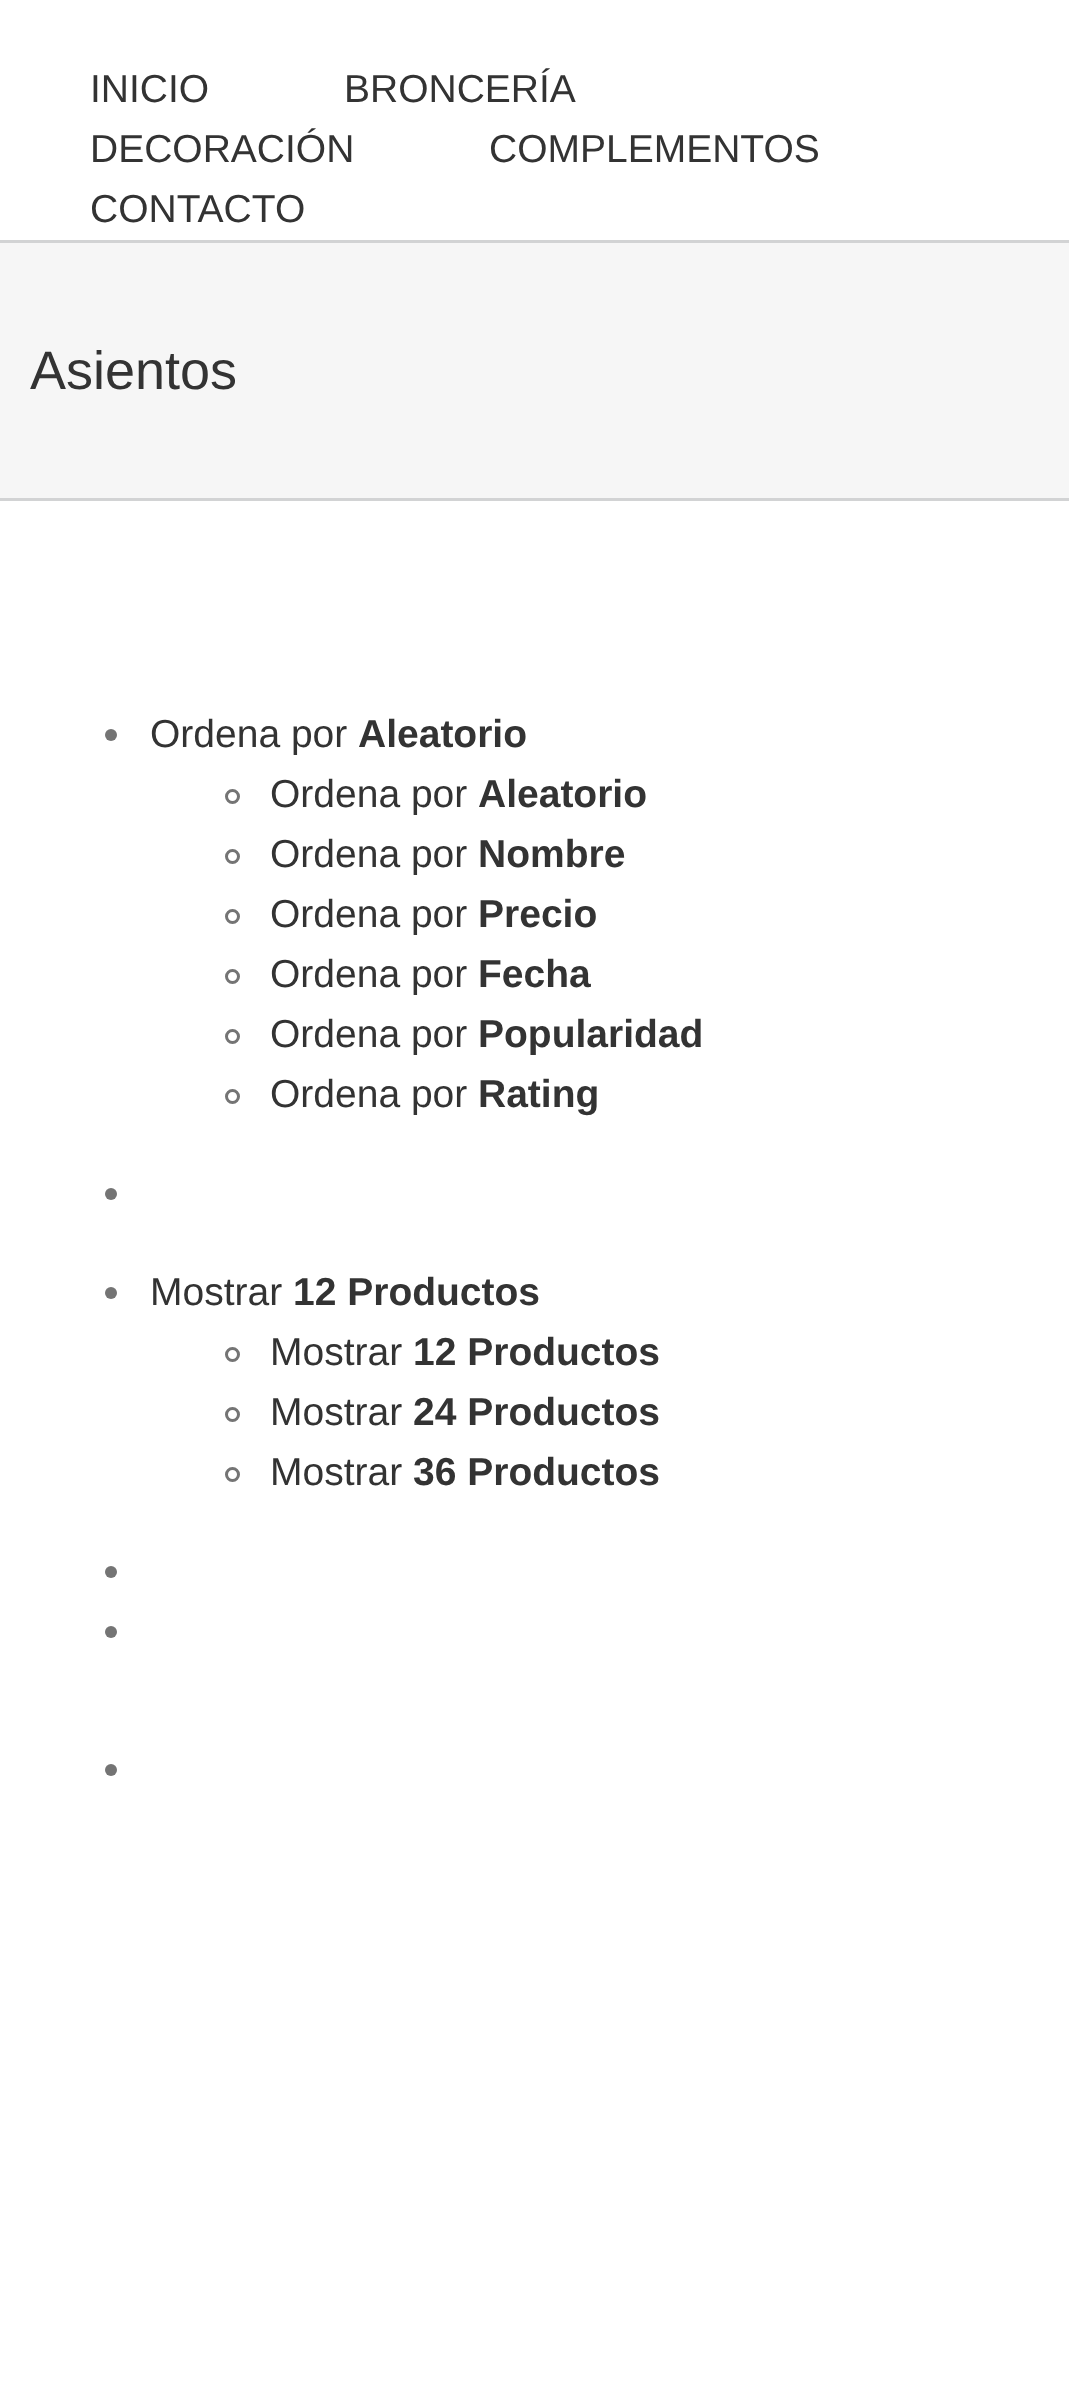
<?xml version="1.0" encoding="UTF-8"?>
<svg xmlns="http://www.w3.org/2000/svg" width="1069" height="2397">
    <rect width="100%" height="100%" fill="#FFFFFF"/>
    <text x="90" y="102" font-family="Liberation Sans" font-size="39" fill="#333333">INICIO</text>
    <text x="344" y="102" font-family="Liberation Sans" font-size="39" fill="#333333">BRONCERÍA</text>
    <text x="90" y="162" font-family="Liberation Sans" font-size="39" fill="#333333">DECORACIÓN</text>
    <text x="489" y="162" font-family="Liberation Sans" font-size="39" fill="#333333">COMPLEMENTOS</text>
    <text x="90" y="222" font-family="Liberation Sans" font-size="39" fill="#333333">CONTACTO</text>
    <rect x="0" y="243" width="1069" height="255" fill="#F6F6F6"/>
    <rect x="0" y="240" width="1069" height="3" fill="#D2D3D4"/>
    <rect x="0" y="498" width="1069" height="3" fill="#D2D3D4"/>
    <text x="30" y="389" font-family="Liberation Sans" font-size="54" fill="#333333">Asientos</text>
    <circle cx="111" cy="735" r="6" fill="#747474"/>
    <text x="150" y="747" font-family="Liberation Sans" font-size="39" fill="#333333">Ordena por</text>
    <text x="358" y="747" font-family="Liberation Sans" font-size="39" font-weight="700" fill="#333333">Aleatorio</text>
    <circle cx="232.5" cy="796.5" r="6" fill="none" stroke="#747474" stroke-width="3"/>
    <text x="270" y="807" font-family="Liberation Sans" font-size="39" fill="#333333">Ordena por</text>
    <text x="478" y="807" font-family="Liberation Sans" font-size="39" font-weight="700" fill="#333333">Aleatorio</text>
    <circle cx="232.5" cy="856.5" r="6" fill="none" stroke="#747474" stroke-width="3"/>
    <text x="270" y="867" font-family="Liberation Sans" font-size="39" fill="#333333">Ordena por</text>
    <text x="478" y="867" font-family="Liberation Sans" font-size="39" font-weight="700" fill="#333333">Nombre</text>
    <circle cx="232.5" cy="916.5" r="6" fill="none" stroke="#747474" stroke-width="3"/>
    <text x="270" y="927" font-family="Liberation Sans" font-size="39" fill="#333333">Ordena por</text>
    <text x="478" y="927" font-family="Liberation Sans" font-size="39" font-weight="700" fill="#333333">Precio</text>
    <circle cx="232.5" cy="976.5" r="6" fill="none" stroke="#747474" stroke-width="3"/>
    <text x="270" y="987" font-family="Liberation Sans" font-size="39" fill="#333333">Ordena por</text>
    <text x="478" y="987" font-family="Liberation Sans" font-size="39" font-weight="700" fill="#333333">Fecha</text>
    <circle cx="232.5" cy="1036.5" r="6" fill="none" stroke="#747474" stroke-width="3"/>
    <text x="270" y="1047" font-family="Liberation Sans" font-size="39" fill="#333333">Ordena por</text>
    <text x="478" y="1047" font-family="Liberation Sans" font-size="39" font-weight="700" fill="#333333">Popularidad</text>
    <circle cx="232.5" cy="1096.5" r="6" fill="none" stroke="#747474" stroke-width="3"/>
    <text x="270" y="1107" font-family="Liberation Sans" font-size="39" fill="#333333">Ordena por</text>
    <text x="478" y="1107" font-family="Liberation Sans" font-size="39" font-weight="700" fill="#333333">Rating</text>
    <circle cx="111" cy="1194" r="6" fill="#747474"/>
    <circle cx="111" cy="1293" r="6" fill="#747474"/>
    <text x="150" y="1305" font-family="Liberation Sans" font-size="39" fill="#333333">Mostrar</text>
    <text x="293" y="1305" font-family="Liberation Sans" font-size="39" font-weight="700" fill="#333333">12 Productos</text>
    <circle cx="232.5" cy="1354.5" r="6" fill="none" stroke="#747474" stroke-width="3"/>
    <text x="270" y="1365" font-family="Liberation Sans" font-size="39" fill="#333333">Mostrar</text>
    <text x="413" y="1365" font-family="Liberation Sans" font-size="39" font-weight="700" fill="#333333">12 Productos</text>
    <circle cx="232.5" cy="1414.5" r="6" fill="none" stroke="#747474" stroke-width="3"/>
    <text x="270" y="1425" font-family="Liberation Sans" font-size="39" fill="#333333">Mostrar</text>
    <text x="413" y="1425" font-family="Liberation Sans" font-size="39" font-weight="700" fill="#333333">24 Productos</text>
    <circle cx="232.5" cy="1474.5" r="6" fill="none" stroke="#747474" stroke-width="3"/>
    <text x="270" y="1485" font-family="Liberation Sans" font-size="39" fill="#333333">Mostrar</text>
    <text x="413" y="1485" font-family="Liberation Sans" font-size="39" font-weight="700" fill="#333333">36 Productos</text>
    <circle cx="111" cy="1572" r="6" fill="#747474"/>
    <circle cx="111" cy="1632" r="6" fill="#747474"/>
    <circle cx="111" cy="1770" r="6" fill="#747474"/>
</svg>
